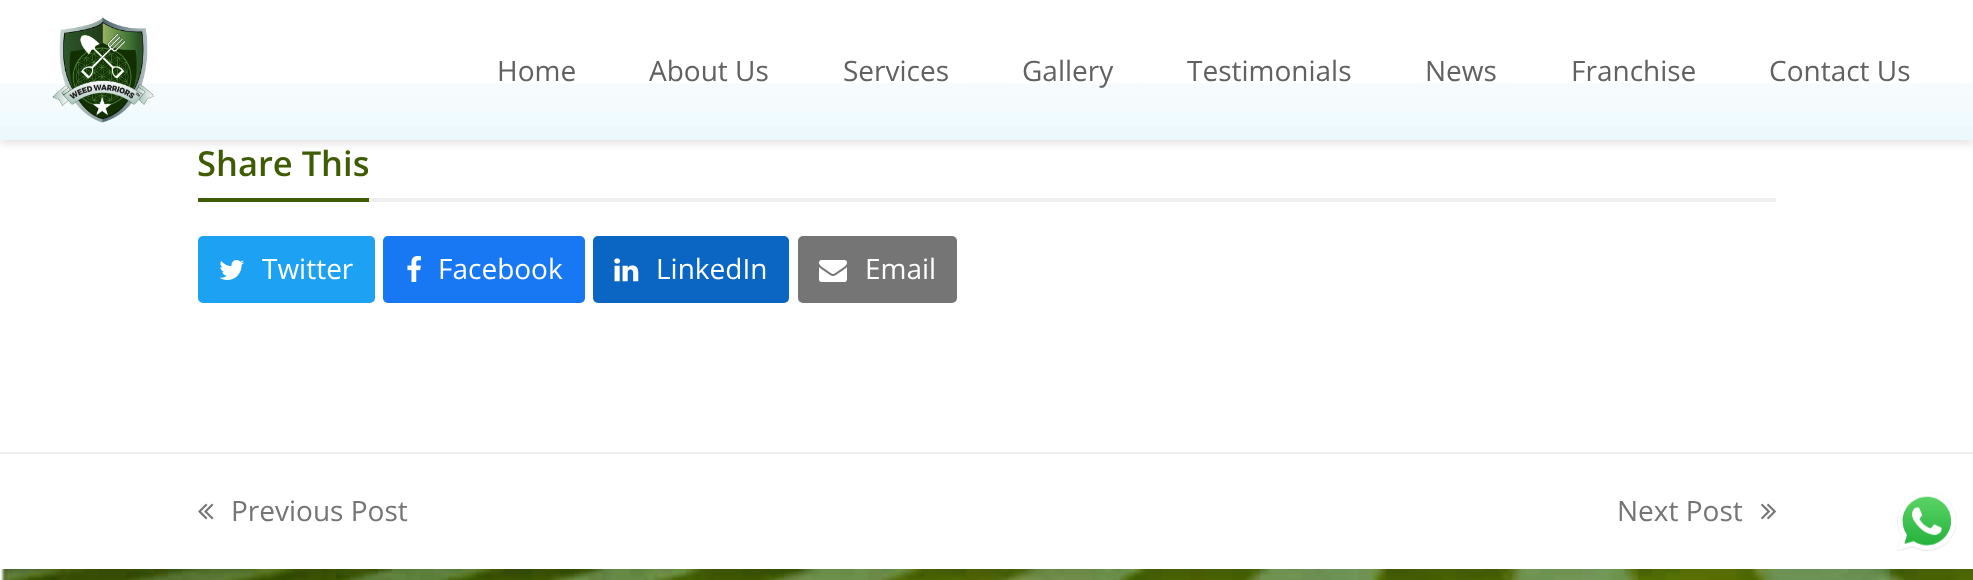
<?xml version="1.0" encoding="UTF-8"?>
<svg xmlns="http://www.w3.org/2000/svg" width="1973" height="580">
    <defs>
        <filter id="blur1" x="-50%" y="-200%" width="200%" height="500%"><feGaussianBlur stdDeviation="4.5"/></filter>
    </defs>
    <rect width="100%" height="100%" fill="#FFFFFF"/>
    <rect x="0" y="4" width="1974" height="140" fill="#000000" fill-opacity="0.1" filter="url(#blur1)"/>
    <rect x="0" y="0" width="1973" height="83" fill="#FFFFFF"/>
    <image x="0" y="83" width="1973" height="57" href="img_01.png"/>
    <image x="52" y="17" width="102" height="106" href="img_02.png"/>
    <text x="497" y="81" font-family="Open Sans" font-size="28" fill="#616161">Home</text>
    <text x="649" y="81" font-family="Open Sans" font-size="28" fill="#616161">About Us</text>
    <text x="843" y="81" font-family="Open Sans" font-size="28" fill="#616161">Services</text>
    <text x="1022" y="81" font-family="Open Sans" font-size="28" fill="#616161">Gallery</text>
    <text x="1187" y="81" font-family="Open Sans" font-size="28" fill="#616161">Testimonials</text>
    <text x="1425" y="81" font-family="Open Sans" font-size="28" fill="#616161">News</text>
    <text x="1571" y="81" font-family="Open Sans" font-size="28" fill="#616161">Franchise</text>
    <text x="1769" y="81" font-family="Open Sans" font-size="28" fill="#616161">Contact Us</text>
    <rect x="369" y="198" width="1407" height="4" fill="#EEEEEE"/>
    <rect x="198" y="198" width="171" height="4" fill="#3F5B03"/>
    <text x="197" y="176" font-family="Open Sans" font-size="34.5" font-weight="600" fill="#3F5B03">Share This</text>
    <rect x="198" y="236" width="177" height="67" rx="5" fill="#1DA1F2"/>
    <image x="219" y="260" width="25" height="20" href="img_03.png"/>
    <text x="262" y="279" font-family="Open Sans" font-size="28" fill="#FFFFFF">Twitter</text>
    <rect x="383" y="236" width="202" height="67" rx="5" fill="#1877F2"/>
    <image x="407" y="256" width="14" height="26" href="img_04.png"/>
    <text x="438" y="279" font-family="Open Sans" font-size="28" fill="#FFFFFF">Facebook</text>
    <rect x="593" y="236" width="196" height="67" rx="5" fill="#0A66C2"/>
    <image x="614" y="258" width="25" height="24" href="img_05.png"/>
    <text x="656" y="279" font-family="Open Sans" font-size="28" fill="#FFFFFF">LinkedIn</text>
    <rect x="798" y="236" width="159" height="67" rx="5" fill="#757575"/>
    <image x="819" y="260" width="28" height="22" href="img_06.png"/>
    <text x="865" y="279" font-family="Open Sans" font-size="28" fill="#FFFFFF">Email</text>
    <rect x="0" y="452" width="1973" height="2" fill="#EEEEEE"/>
    <image x="198" y="503" width="16" height="17" href="img_07.png"/>
    <text x="231" y="521" font-family="Open Sans" font-size="28" fill="#757575">Previous Post</text>
    <text x="1617" y="521" font-family="Open Sans" font-size="28" fill="#757575">Next Post</text>
    <image x="1761" y="503" width="15" height="17" href="img_08.png"/>
    <image x="0" y="569" width="1973" height="11" href="img_09.png"/>
    <image x="1897" y="492" width="60" height="59" href="img_10.png"/>
</svg>
